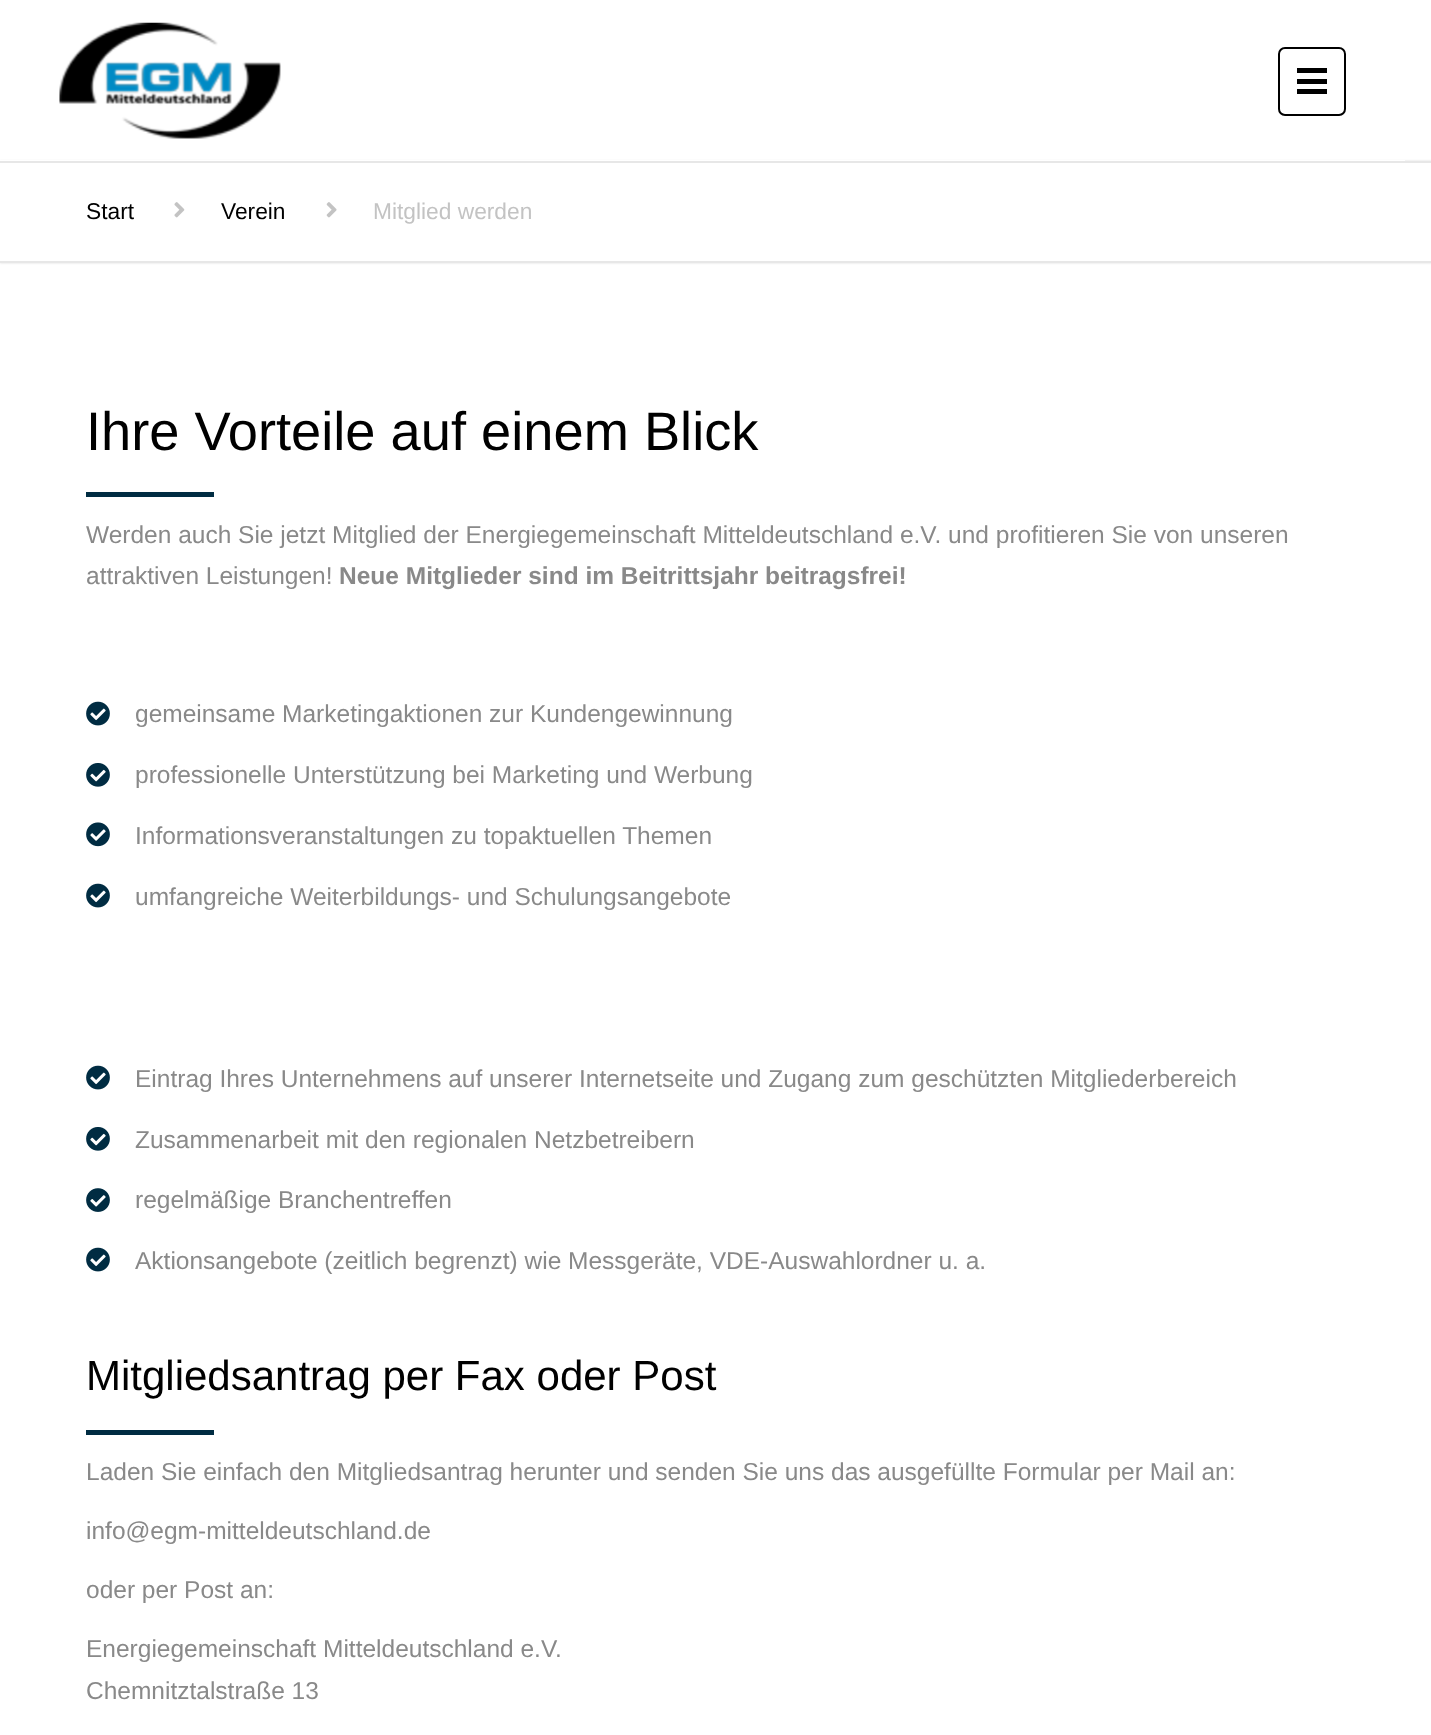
<?xml version="1.0" encoding="UTF-8"?>
<svg xmlns="http://www.w3.org/2000/svg" width="1431" height="1735">
    <defs>
        <clipPath id="clip1"><path d="M 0 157 H 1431 V 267 H 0 Z M 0 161 H 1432 V 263 H 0 Z" clip-rule="evenodd"/></clipPath>
        <filter id="blur1" x="-50%" y="-200%" width="200%" height="500%"><feGaussianBlur stdDeviation="1"/></filter>
    </defs>
    <rect width="100%" height="100%" fill="#FFFFFF"/>
    <g clip-path="url(#clip1)">
        <rect x="0" y="161" width="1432" height="102" fill="#000000" fill-opacity="0.14" filter="url(#blur1)"/>
    </g>
    <rect x="0" y="160" width="1405" height="1" fill="#FFFFFF"/>
    <image x="59" y="22" width="222" height="117" href="img_01.png"/>
    <rect x="1279" y="48" width="66" height="67" rx="6" fill="none" stroke="#000000" stroke-width="2"/>
    <rect x="1297" y="68" width="30" height="5" fill="#000000"/>
    <rect x="1297" y="79" width="30" height="5" fill="#000000"/>
    <rect x="1297" y="89" width="30" height="5" fill="#000000"/>
    <rect x="0" y="161" width="1431" height="2" fill="#E7E7E7"/>
    <rect x="0" y="261" width="1431" height="2" fill="#E7E7E7"/>
    <text x="86" y="219" font-family="Liberation Sans" font-size="22.75" fill="#000000">Start</text>
    <image x="174" y="202" width="11" height="16" href="img_02.png"/>
    <text x="221" y="219" font-family="Liberation Sans" font-size="22.75" fill="#000000">Verein</text>
    <image x="326" y="202" width="11" height="16" href="img_03.png"/>
    <text x="373" y="219" font-family="Liberation Sans" font-size="22.75" fill="#C3C3C3">Mitglied werden</text>
    <text x="86" y="450" font-family="Liberation Sans" font-size="54.25" fill="#000000">Ihre Vorteile auf einem Blick</text>
    <rect x="86" y="492" width="128" height="5" fill="#002C42"/>
    <text font-family="Liberation Sans" font-size="24.5" fill="#898989">
        <tspan x="86" y="543">Werden auch Sie jetzt Mitglied der Energiegemeinschaft Mitteldeutschland e.V. und profitieren Sie von unseren</tspan>
        <tspan x="86" y="584">attraktiven Leistungen!</tspan>
    </text>
    <text x="339" y="584" font-family="Liberation Sans" font-size="24.5" font-weight="700" fill="#898989">Neue Mitglieder sind im Beitrittsjahr beitragsfrei!</text>
    <image x="86" y="701" width="24" height="25" href="img_04.png"/>
    <text x="135" y="722" font-family="Liberation Sans" font-size="24.5" fill="#898989">gemeinsame Marketingaktionen zur Kundengewinnung</text>
    <image x="86" y="763" width="24" height="24" href="img_05.png"/>
    <text x="135" y="783" font-family="Liberation Sans" font-size="24.5" fill="#898989">professionelle Unterstützung bei Marketing und Werbung</text>
    <image x="86" y="822" width="24" height="25" href="img_06.png"/>
    <text x="135" y="844" font-family="Liberation Sans" font-size="24.5" fill="#898989">Informationsveranstaltungen zu topaktuellen Themen</text>
    <image x="86" y="883" width="24" height="25" href="img_04.png"/>
    <text x="135" y="905" font-family="Liberation Sans" font-size="24.5" fill="#898989">umfangreiche Weiterbildungs- und Schulungsangebote</text>
    <image x="86" y="1065" width="24" height="25" href="img_04.png"/>
    <text x="135" y="1087" font-family="Liberation Sans" font-size="24.5" fill="#898989">Eintrag Ihres Unternehmens auf unserer Internetseite und Zugang zum geschützten Mitgliederbereich</text>
    <image x="86" y="1127" width="24" height="24" href="img_05.png"/>
    <text x="135" y="1148" font-family="Liberation Sans" font-size="24.5" fill="#898989">Zusammenarbeit mit den regionalen Netzbetreibern</text>
    <image x="86" y="1188" width="24" height="24" href="img_07.png"/>
    <text x="135" y="1208" font-family="Liberation Sans" font-size="24.5" fill="#898989">regelmäßige Branchentreffen</text>
    <image x="86" y="1247" width="24" height="25" href="img_04.png"/>
    <text x="135" y="1269" font-family="Liberation Sans" font-size="24.5" fill="#898989">Aktionsangebote (zeitlich begrenzt) wie Messgeräte, VDE-Auswahlordner u. a.</text>
    <text x="86" y="1390" font-family="Liberation Sans" font-size="42" fill="#000000">Mitgliedsantrag per Fax oder Post</text>
    <rect x="86" y="1430" width="128" height="5" fill="#002C42"/>
    <text x="86" y="1480" font-family="Liberation Sans" font-size="24.5" fill="#898989">Laden Sie einfach den Mitgliedsantrag herunter und senden Sie uns das ausgefüllte Formular per Mail an:</text>
    <text x="86" y="1539" font-family="Liberation Sans" font-size="24.5" fill="#898989">info@egm-mitteldeutschland.de</text>
    <text x="86" y="1598" font-family="Liberation Sans" font-size="24.5" fill="#898989">oder per Post an:</text>
    <text font-family="Liberation Sans" font-size="24.5" fill="#898989">
        <tspan x="86" y="1657">Energiegemeinschaft Mitteldeutschland e.V.</tspan>
        <tspan x="86" y="1699">Chemnitztalstraße 13</tspan>
    </text>
</svg>
